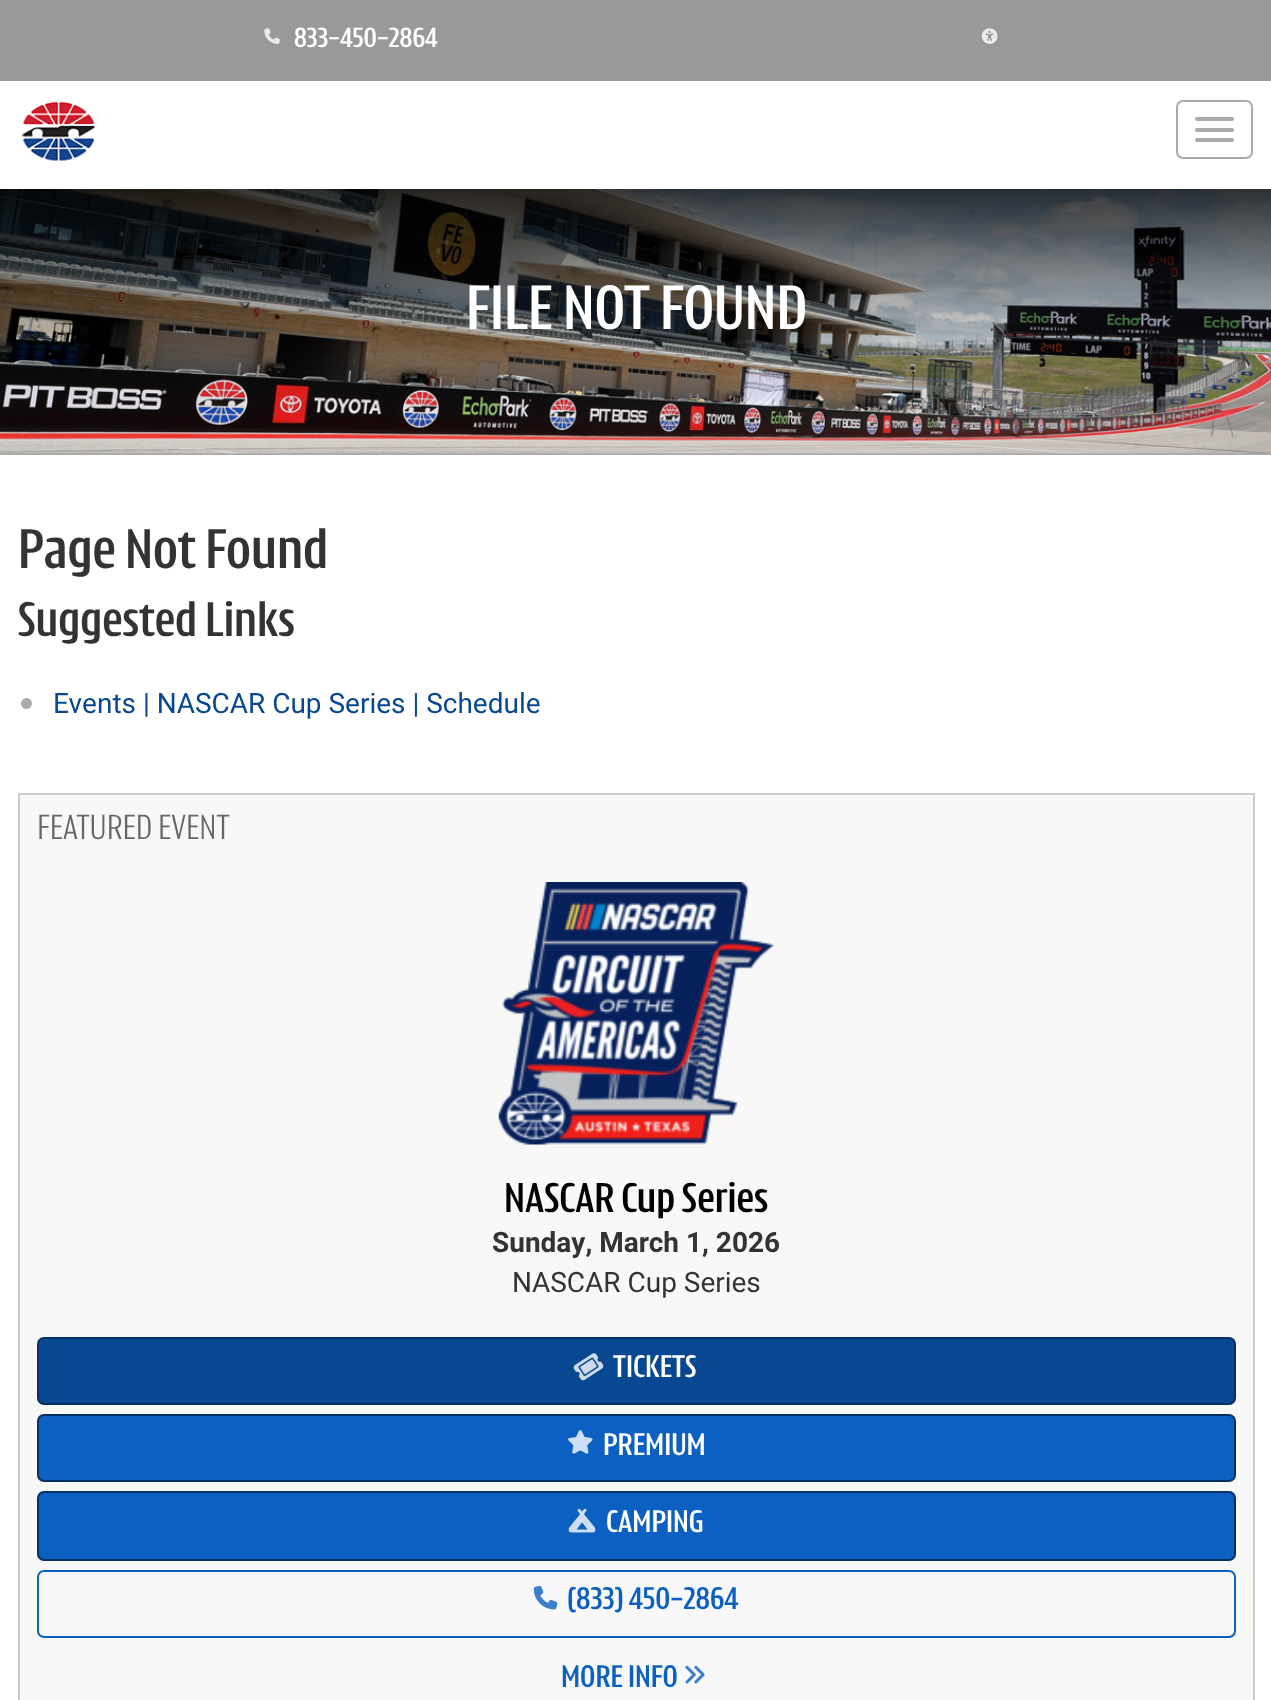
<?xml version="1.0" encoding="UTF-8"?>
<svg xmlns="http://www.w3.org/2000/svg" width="1271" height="1700">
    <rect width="100%" height="100%" fill="#FFFFFF"/>
    <rect x="0" y="0" width="1271" height="81" fill="#999999"/>
    <image x="264" y="28" width="16" height="16" href="img_01.png"/>
    <text x="294" y="47" font-family="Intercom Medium" font-size="28" font-weight="500" fill="#FFFFFF">833-450-2864</text>
    <image x="981" y="28" width="17" height="16" href="img_02.png"/>
    <image x="22" y="101" width="73" height="60" href="img_03.png"/>
    <rect x="1177" y="101" width="75" height="57" rx="6" fill="none" stroke="#AAAAAA" stroke-width="2"/>
    <rect x="1195" y="117" width="39" height="4" rx="2" fill="#AAAAAA"/>
    <rect x="1195" y="128" width="39" height="4" rx="2" fill="#AAAAAA"/>
    <rect x="1195" y="138" width="39" height="4" rx="2" fill="#AAAAAA"/>
    <rect x="0" y="453" width="1271" height="2" fill="#AAAAAA"/>
    <image x="0" y="189" width="1271" height="265" href="img_04.png"/>
    <text x="466" y="329" font-family="Intercom Medium" font-size="63" font-weight="500" fill="#FFFFFF">FILE NOT FOUND</text>
    <text x="18" y="568" font-family="Intercom Medium" font-size="56" font-weight="500" fill="#333333">Page Not Found</text>
    <text x="18" y="636" font-family="Intercom Medium" font-size="49" font-weight="500" fill="#333333">Suggested Links</text>
    <circle cx="26.5" cy="703.5" r="5.5" fill="#AAAAAA"/>
    <text x="53" y="713" font-family="Roboto" font-size="28" fill="#084891">Events | NASCAR Cup Series | Schedule</text>
    <rect x="19" y="794" width="1235" height="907" fill="#F8F8F8" stroke="#CCCCCC" stroke-width="2"/>
    <text x="37" y="839" font-family="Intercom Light" font-size="35" font-weight="300" fill="#666666">FEATURED EVENT</text>
    <image x="498" y="882" width="276" height="263" href="img_05.png"/>
    <text x="504" y="1212" font-family="Intercom Medium" font-size="42" font-weight="500" fill="#000000">NASCAR Cup Series</text>
    <text x="492" y="1252" font-family="Roboto" font-size="28" font-weight="700" fill="#333333">Sunday, March 1, 2026</text>
    <text x="512" y="1292" font-family="Roboto" font-size="28" fill="#333333">NASCAR Cup Series</text>
    <rect x="38" y="1338" width="1197" height="66" rx="6" fill="#084891" stroke="#053061" stroke-width="2"/>
    <image x="573" y="1353" width="31" height="28" href="img_06.png"/>
    <text x="613" y="1377" font-family="Intercom Medium" font-size="31.5" font-weight="500" fill="#FFFFFF">TICKETS</text>
    <rect x="38" y="1415" width="1197" height="66" rx="6" fill="#0B60C1" stroke="#053061" stroke-width="2"/>
    <image x="568" y="1430" width="25" height="24" href="img_07.png"/>
    <text x="603" y="1455" font-family="Intercom Medium" font-size="31.5" font-weight="500" fill="#FFFFFF">PREMIUM</text>
    <rect x="38" y="1492" width="1197" height="68" rx="6" fill="#0B60C1" stroke="#053061" stroke-width="2"/>
    <image x="568" y="1508" width="28" height="25" href="img_08.png"/>
    <text x="606" y="1532" font-family="Intercom Medium" font-size="31.5" font-weight="500" fill="#FFFFFF">CAMPING</text>
    <rect x="38" y="1571" width="1197" height="66" rx="6" fill="none" stroke="#0B60C1" stroke-width="2"/>
    <image x="533" y="1585" width="25" height="25" href="img_09.png"/>
    <text x="567" y="1609" font-family="Intercom Medium" font-size="31.5" font-weight="500" fill="#0B60C1">(833) 450-2864</text>
    <text x="561" y="1687" font-family="Intercom Medium" font-size="31.5" font-weight="500" fill="#0B60C1">MORE INFO</text>
    <image x="685" y="1665" width="20" height="19" href="img_10.png"/>
</svg>
